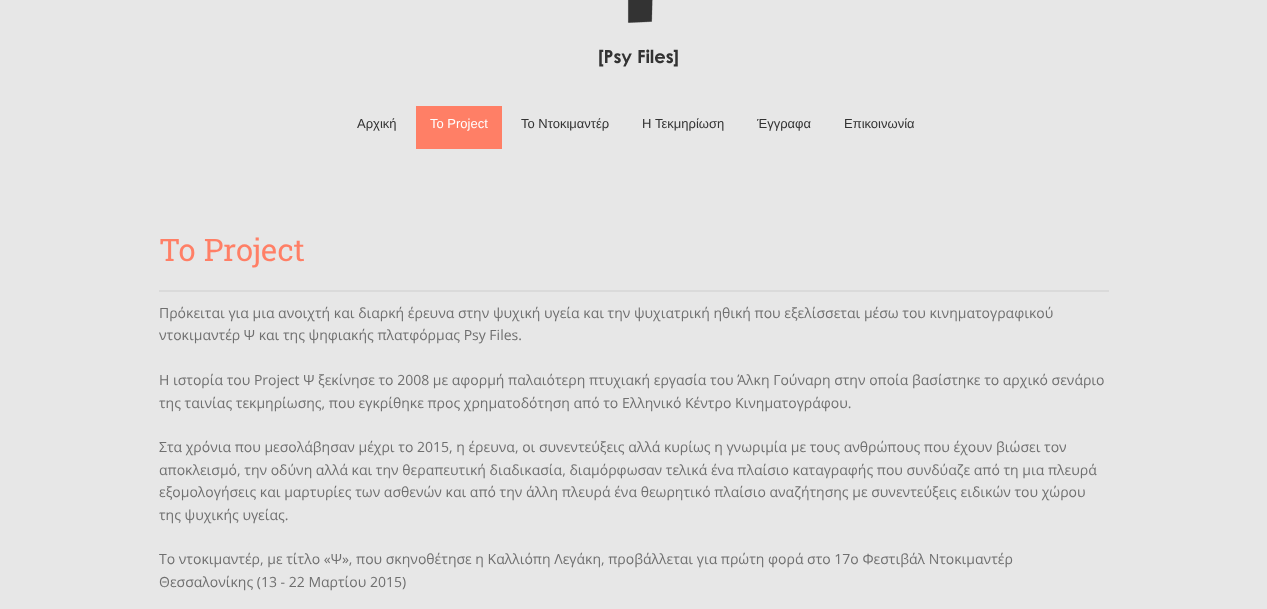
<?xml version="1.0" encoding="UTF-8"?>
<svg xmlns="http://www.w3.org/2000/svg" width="1267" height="609">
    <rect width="100%" height="100%" fill="#E7E7E7"/>
    <image x="599" y="0" width="79" height="67" href="img_01.png"/>
    <text x="357" y="128" font-family="Liberation Sans" font-size="13" fill="#333333">Αρχική</text>
    <rect x="416" y="106" width="86" height="43" fill="#FF7F66"/>
    <text x="430" y="128" font-family="Liberation Sans" font-size="13" fill="#FFFFFF">Το Project</text>
    <text x="521" y="128" font-family="Liberation Sans" font-size="13" fill="#333333">To Ντοκιμαντέρ</text>
    <text x="642" y="128" font-family="Liberation Sans" font-size="13" fill="#333333">H Τεκμηρίωση</text>
    <text x="757" y="128" font-family="Liberation Sans" font-size="13" fill="#333333">Έγγραφα</text>
    <text x="844" y="128" font-family="Liberation Sans" font-size="13" fill="#333333">Επικοινωνία</text>
    <text x="159" y="261" font-family="Roboto Slab" font-size="31" fill="#FF7F66">Το Project</text>
    <rect x="159" y="290" width="950" height="2" fill="#DADADA"/>
    <text font-family="Open Sans" font-size="14" fill="#6F6F6F">
        <tspan x="159" y="318">Πρόκειται για μια ανοιχτή και διαρκή έρευνα στην ψυχική υγεία και την ψυχιατρική ηθική που εξελίσσεται μέσω του κινηματογραφικού</tspan>
        <tspan x="159" y="340">ντοκιμαντέρ Ψ και της ψηφιακής πλατφόρμας Psy Files.</tspan>
    </text>
    <text font-family="Open Sans" font-size="14" fill="#6F6F6F">
        <tspan x="159" y="385">Η ιστορία του Project Ψ ξεκίνησε το 2008 με αφορμή παλαιότερη πτυχιακή εργασία του Άλκη Γούναρη στην οποία βασίστηκε το αρχικό σενάριο</tspan>
        <tspan x="159" y="408">της ταινίας τεκμηρίωσης, που εγκρίθηκε προς χρηματοδότηση από το Ελληνικό Κέντρο Κινηματογράφου.</tspan>
    </text>
    <text font-family="Open Sans" font-size="14" fill="#6F6F6F">
        <tspan x="159" y="452">Στα χρόνια που μεσολάβησαν μέχρι το 2015, η έρευνα, οι συνεντεύξεις αλλά κυρίως η γνωριμία με τους ανθρώπους που έχουν βιώσει τον</tspan>
        <tspan x="159" y="475">αποκλεισμό, την οδύνη αλλά και την θεραπευτική διαδικασία, διαμόρφωσαν τελικά ένα πλαίσιο καταγραφής που συνδύαζε από τη μια πλευρά</tspan>
        <tspan x="159" y="497">εξομολογήσεις και μαρτυρίες των ασθενών και από την άλλη πλευρά ένα θεωρητικό πλαίσιο αναζήτησης με συνεντεύξεις ειδικών του χώρου</tspan>
        <tspan x="159" y="520">της ψυχικής υγείας.</tspan>
    </text>
    <text font-family="Open Sans" font-size="14" fill="#6F6F6F">
        <tspan x="159" y="564">Το ντοκιμαντέρ, με τίτλο «Ψ», που σκηνοθέτησε η Καλλιόπη Λεγάκη, προβάλλεται για πρώτη φορά στο 17ο Φεστιβάλ Ντοκιμαντέρ</tspan>
        <tspan x="159" y="587">Θεσσαλονίκης (13 - 22 Μαρτίου 2015)</tspan>
    </text>
</svg>
